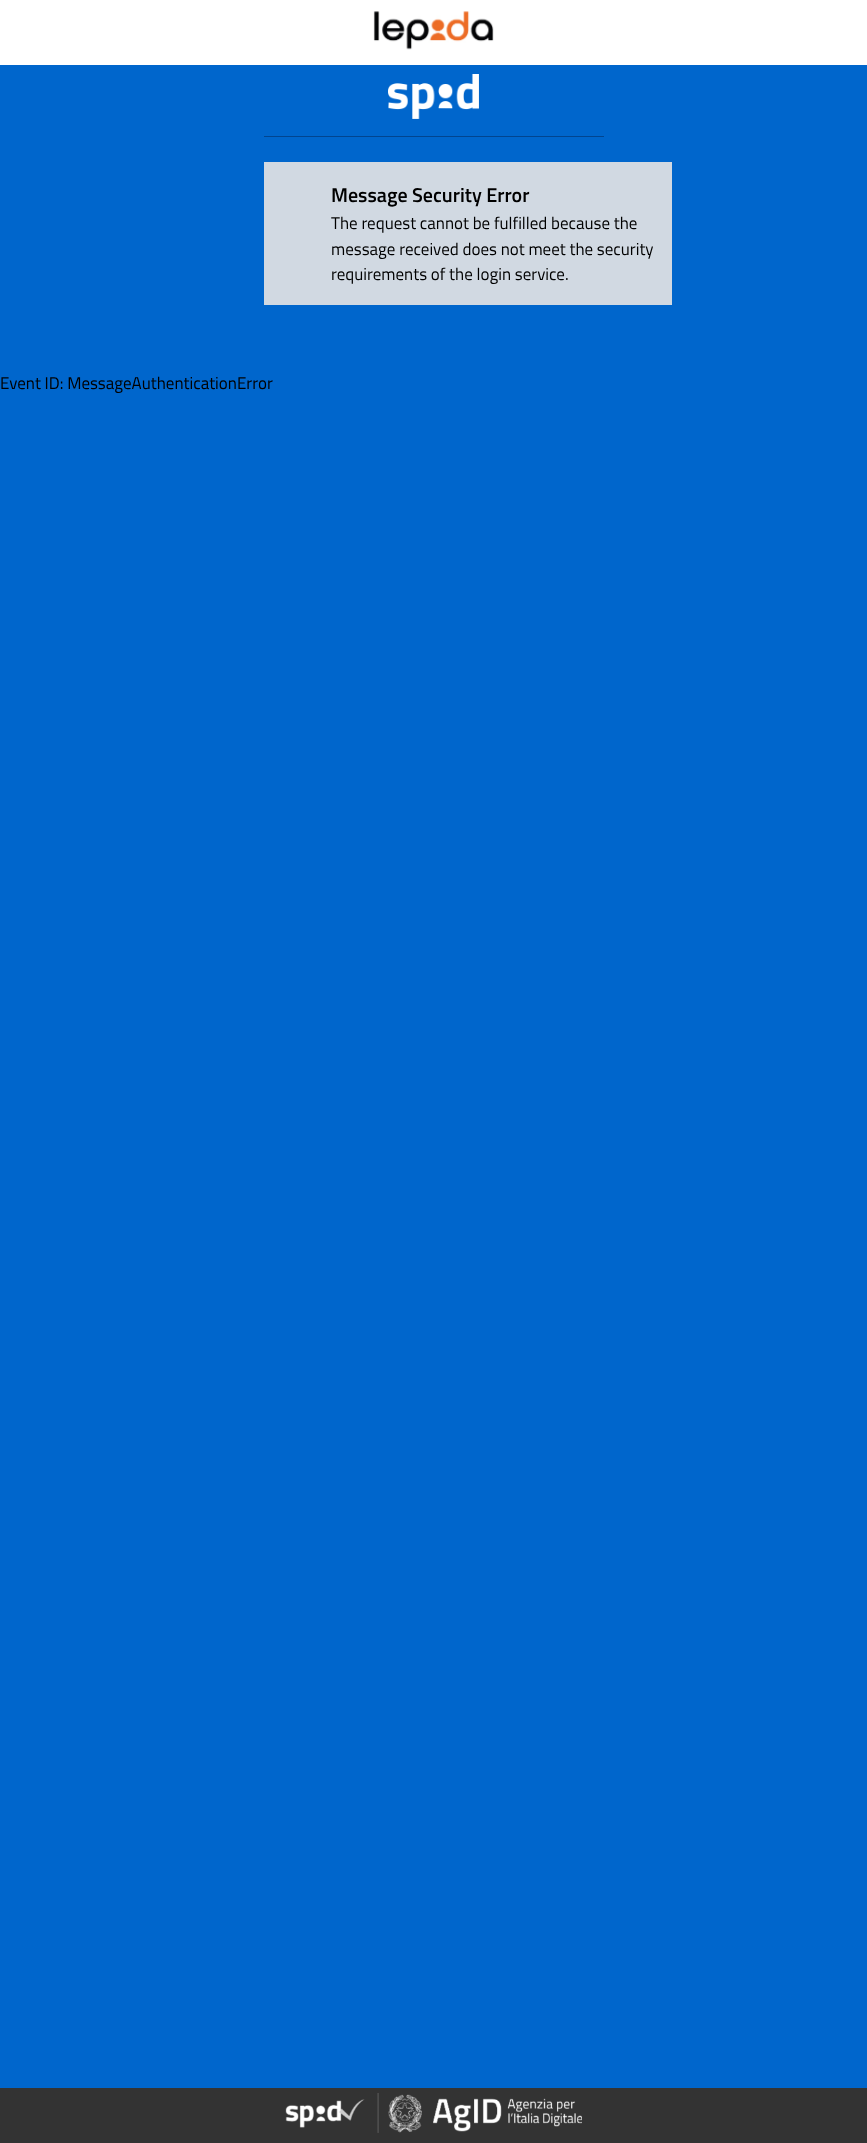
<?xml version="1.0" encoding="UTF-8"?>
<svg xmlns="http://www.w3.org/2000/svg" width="867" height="2143">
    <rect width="100%" height="100%" fill="#0066CC"/>
    <rect x="0" y="0" width="867" height="65" fill="#FFFFFF"/>
    <image x="373" y="11" width="121" height="39" href="img_01.png"/>
    <image x="388" y="74" width="91" height="45" href="img_02.png"/>
    <rect x="264" y="136" width="340" height="1" fill="#014590"/>
    <rect x="264" y="162" width="408" height="143" fill="#D1D9E2"/>
    <text x="331" y="202" font-family="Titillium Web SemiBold" font-size="20" font-weight="600" fill="#000000">Message Security Error</text>
    <text font-family="Titillium Web" font-size="17" fill="#000000">
        <tspan x="331" y="229">The request cannot be fulfilled because the</tspan>
        <tspan x="331" y="255">message received does not meet the security</tspan>
        <tspan x="331" y="280">requirements of the login service.</tspan>
    </text>
    <text x="0" y="389" font-family="Titillium Web" font-size="17" fill="#000000">Event ID: MessageAuthenticationError</text>
    <rect x="0" y="2088" width="867" height="55" fill="#333333"/>
    <image x="285" y="2093" width="297" height="40" href="img_03.png"/>
</svg>
